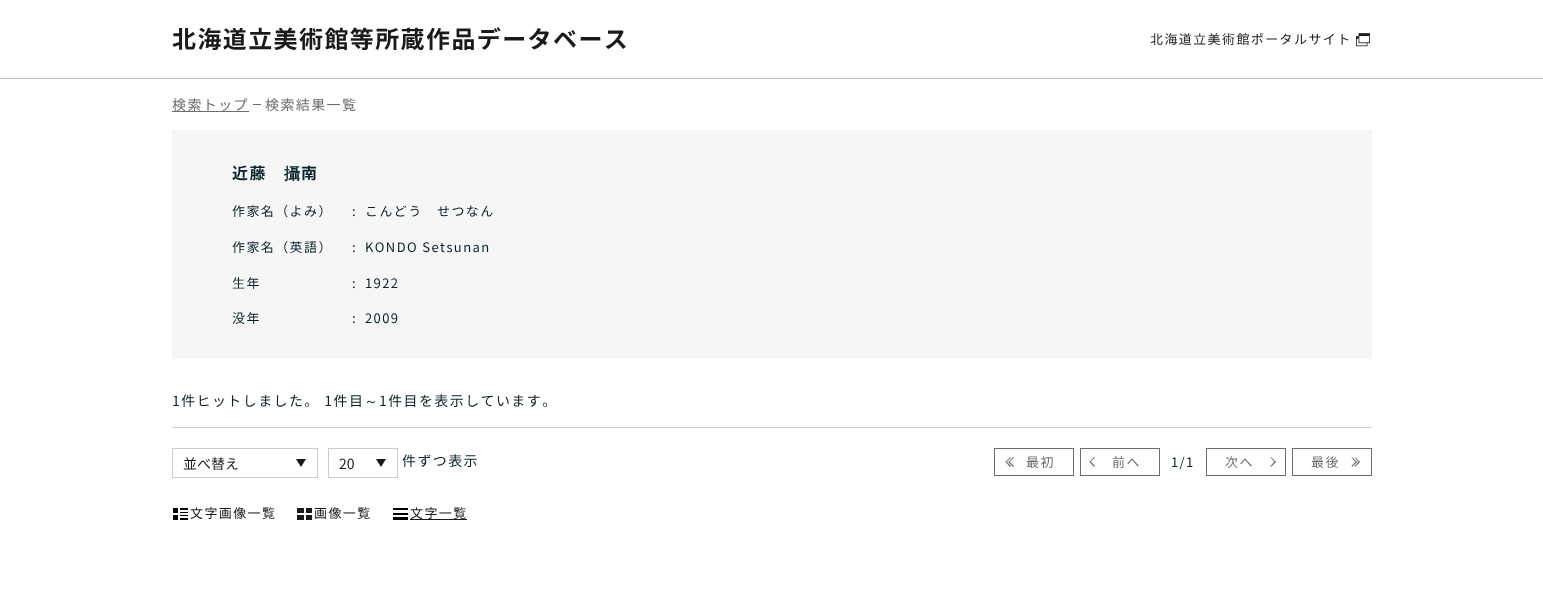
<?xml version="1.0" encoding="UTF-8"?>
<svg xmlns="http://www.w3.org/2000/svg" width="1543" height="589">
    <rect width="100%" height="100%" fill="#FFFFFF"/>
    <rect x="0" y="78" width="1543" height="1" fill="#C0C0C0"/>
    <text x="172" y="48" font-family="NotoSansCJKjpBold" font-size="24" font-weight="700" letter-spacing="1.4" fill="#1A1A1A">北海道立美術館等所蔵作品データベース</text>
    <text x="1150" y="44" font-family="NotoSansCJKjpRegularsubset" font-size="13" letter-spacing="1.4" fill="#1A1A1A">北海道立美術館ポータルサイト</text>
    <image x="1356" y="33" width="14" height="14" href="img_01.png"/>
    <rect x="172" y="111" width="77" height="1" fill="#6D6D6D"/>
    <text x="172" y="110" font-family="NotoSansCJKjpRegularsubset" font-size="14" letter-spacing="1.4" fill="#6D6D6D">検索トップ</text>
    <rect x="253" y="104" width="8" height="1" fill="#6D6D6D"/>
    <text x="265" y="110" font-family="NotoSansCJKjpRegularsubset" font-size="14" letter-spacing="1.4" fill="#6D6D6D">検索結果一覧</text>
    <rect x="172" y="130" width="1200" height="229" fill="#F6F6F6"/>
    <text x="232" y="179" font-family="NotoSansCJKjpBold" font-size="16" font-weight="700" letter-spacing="1.4" fill="#07222B">近藤</text>
    <text x="284" y="179" font-family="WenQuanYi Zen Hei" font-size="16" font-weight="700" letter-spacing="1.4" fill="#07222B">攝</text>
    <text x="301" y="179" font-family="NotoSansCJKjpBold" font-size="16" font-weight="700" letter-spacing="1.4" fill="#07222B">南</text>
    <text x="232" y="216" font-family="NotoSansCJKjpRegularsubset" font-size="13" letter-spacing="1.4" fill="#07222B">作家名（よみ）</text>
    <text x="352" y="216" font-family="NotoSansCJKjpRegularsubset" font-size="13" letter-spacing="1.4" fill="#07222B">:</text>
    <text x="365" y="216" font-family="NotoSansCJKjpRegularsubset" font-size="13" letter-spacing="1.4" fill="#07222B">こんどう</text>
    <text x="437" y="216" font-family="NotoSansCJKjpRegularsubset" font-size="13" letter-spacing="1.4" fill="#07222B">せつなん</text>
    <text x="232" y="252" font-family="NotoSansCJKjpRegularsubset" font-size="13" letter-spacing="1.4" fill="#07222B">作家名（英語）</text>
    <text x="352" y="252" font-family="NotoSansCJKjpRegularsubset" font-size="13" letter-spacing="1.4" fill="#07222B">:</text>
    <text x="365" y="252" font-family="NotoSansCJKjpRegularsubset" font-size="13" letter-spacing="1.4" fill="#07222B">KONDO Setsunan</text>
    <text x="232" y="288" font-family="NotoSansCJKjpRegularsubset" font-size="13" letter-spacing="1.4" fill="#07222B">生年</text>
    <text x="352" y="288" font-family="NotoSansCJKjpRegularsubset" font-size="13" letter-spacing="1.4" fill="#07222B">:</text>
    <text x="365" y="288" font-family="NotoSansCJKjpRegularsubset" font-size="13" letter-spacing="1.4" fill="#07222B">1922</text>
    <text x="232" y="323" font-family="NotoSansCJKjpRegularsubset" font-size="13" letter-spacing="1.4" fill="#07222B">没年</text>
    <text x="352" y="323" font-family="NotoSansCJKjpRegularsubset" font-size="13" letter-spacing="1.4" fill="#07222B">:</text>
    <text x="365" y="323" font-family="NotoSansCJKjpRegularsubset" font-size="13" letter-spacing="1.4" fill="#07222B">2009</text>
    <rect x="172" y="427" width="1200" height="1" fill="#CCCCCC"/>
    <text x="172" y="406" font-family="NotoSansCJKjpRegularsubset" font-size="14" letter-spacing="1.4" fill="#07222B">1件ヒットしました。 1件目</text>
    <text x="364" y="406" font-family="WenQuanYi Zen Hei" font-size="14" font-weight="500" letter-spacing="1.4" fill="#07222B">～</text>
    <text x="379" y="406" font-family="NotoSansCJKjpRegularsubset" font-size="14" letter-spacing="1.4" fill="#07222B">1件目を表示しています。</text>
    <rect x="172.5" y="448.5" width="145" height="29" fill="none" stroke="#CCCCCC"/>
    <text x="183" y="469" font-family="NotoSansCJKjpRegularsubset" font-size="14" fill="#1A1A1A">並べ替え</text>
    <path d="M 296 459 H 306 L 301 467 Z" fill="#1A1A1A"/>
    <rect x="328.5" y="448.5" width="69" height="29" fill="none" stroke="#CCCCCC"/>
    <text x="339" y="469" font-family="NotoSansCJKjpRegularsubset" font-size="14" fill="#1A1A1A">20</text>
    <path d="M 376 459 H 386 L 381 467 Z" fill="#1A1A1A"/>
    <text x="402" y="466" font-family="NotoSansCJKjpRegularsubset" font-size="14" letter-spacing="1.4" fill="#07222B">件ずつ表示</text>
    <rect x="994.5" y="448.5" width="79" height="27" fill="none" stroke="#6D6D6D"/>
    <path d="M 1006 461 L 1011 466 L 1010 467 L 1005.5 462 Z" fill="#6D6D6D"/>
    <path d="M 1010 457 L 1011 457.5 L 1006 462.5 L 1005.5 462 Z" fill="#6D6D6D"/>
    <text x="1026" y="467" font-family="NotoSansCJKjpRegularsubset" font-size="13" letter-spacing="1.4" fill="#6D6D6D">最初</text>
    <path d="M 1009 461 L 1014 466 L 1013 467 L 1008.5 462 Z" fill="#6D6D6D"/>
    <path d="M 1013 457 L 1014 457.5 L 1009 462.5 L 1008.5 462 Z" fill="#6D6D6D"/>
    <rect x="1080.5" y="448.5" width="79" height="27" fill="none" stroke="#6D6D6D"/>
    <path d="M 1090 461 L 1095 466 L 1094 467 L 1089.5 462 Z" fill="#6D6D6D"/>
    <path d="M 1094 457 L 1095 457.5 L 1090 462.5 L 1089.5 462 Z" fill="#6D6D6D"/>
    <text x="1112" y="467" font-family="NotoSansCJKjpRegularsubset" font-size="13" letter-spacing="1.4" fill="#6D6D6D">前へ</text>
    <text x="1171" y="467" font-family="NotoSansCJKjpRegularsubset" font-size="13" letter-spacing="1.4" fill="#07222B">1/1</text>
    <rect x="1206.5" y="448.5" width="79" height="27" fill="none" stroke="#6D6D6D"/>
    <text x="1225" y="467" font-family="NotoSansCJKjpRegularsubset" font-size="13" letter-spacing="1.4" fill="#6D6D6D">次へ</text>
    <path d="M 1271 457 L 1276 462 L 1275 462.5 L 1270.5 457.5 Z" fill="#6D6D6D"/>
    <path d="M 1275 461 L 1276 462 L 1271 467 L 1270.5 466 Z" fill="#6D6D6D"/>
    <rect x="1292.5" y="448.5" width="79" height="27" fill="none" stroke="#6D6D6D"/>
    <text x="1311" y="467" font-family="NotoSansCJKjpRegularsubset" font-size="13" letter-spacing="1.4" fill="#6D6D6D">最後</text>
    <path d="M 1355 457 L 1360 462 L 1359 462.5 L 1354.5 457.5 Z" fill="#6D6D6D"/>
    <path d="M 1359 461 L 1360 462 L 1355 467 L 1354.5 466 Z" fill="#6D6D6D"/>
    <path d="M 1352 457 L 1357 462 L 1356 462.5 L 1351.5 457.5 Z" fill="#6D6D6D"/>
    <path d="M 1356 461 L 1357 462 L 1352 467 L 1351.5 466 Z" fill="#6D6D6D"/>
    <image x="173" y="508" width="15" height="12" href="img_02.png"/>
    <text x="190" y="518" font-family="NotoSansCJKjpRegularsubset" font-size="13" letter-spacing="1.4" fill="#1A1A1A">文字画像一覧</text>
    <image x="297" y="508" width="15" height="12" href="img_03.png"/>
    <text x="314" y="518" font-family="NotoSansCJKjpRegularsubset" font-size="13" letter-spacing="1.4" fill="#1A1A1A">画像一覧</text>
    <rect x="393" y="508" width="15" height="2" fill="#000000"/>
    <rect x="393" y="513" width="15" height="2" fill="#000000"/>
    <rect x="393" y="517" width="15" height="3" fill="#000000"/>
    <text x="410" y="518" font-family="NotoSansCJKjpRegularsubset" font-size="13" letter-spacing="1.4" fill="#1A1A1A">文字一覧</text>
    <rect x="410" y="519" width="57" height="1" fill="#1A1A1A"/>
</svg>
